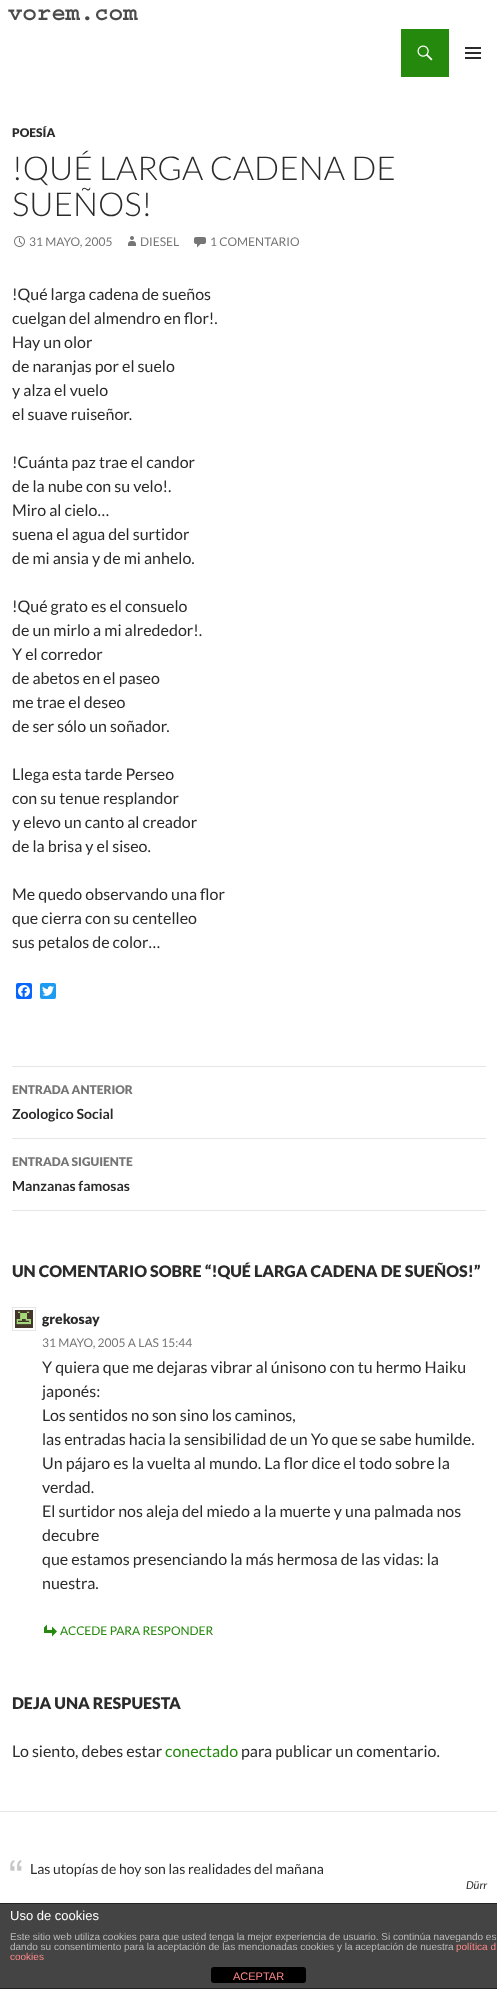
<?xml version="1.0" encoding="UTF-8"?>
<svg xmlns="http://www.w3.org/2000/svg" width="497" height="1989">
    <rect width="100%" height="100%" fill="#FFFFFF"/>
    <image x="8" y="9" width="130" height="12" href="img_01.png"/>
    <rect x="401" y="29" width="48" height="48" fill="#24890D"/>
    <image x="417" y="45" width="16" height="16" href="img_02.png"/>
    <image x="465" y="47" width="16" height="12" href="img_03.png"/>
    <text x="12" y="137" font-family="Lato" font-size="12" font-weight="900" fill="#2B2B2B">POESÍA</text>
    <text font-family="Lato" font-size="33" font-weight="300" fill="#2B2B2B">
        <tspan x="12" y="180">!QUÉ LARGA CADENA DE</tspan>
        <tspan x="12" y="216">SUEÑOS!</tspan>
    </text>
    <image x="14" y="236" width="11" height="11" href="img_04.png"/>
    <text x="29" y="246" font-family="Lato" font-size="12" fill="#767676">31 MAYO, 2005</text>
    <image x="128" y="236" width="8" height="10" href="img_05.png"/>
    <text x="140" y="246" font-family="Lato" font-size="12" fill="#767676">DIESEL</text>
    <image x="194" y="237" width="12" height="11" href="img_06.png"/>
    <text x="210" y="246" font-family="Lato" font-size="12" fill="#767676">1 COMENTARIO</text>
    <text font-family="Lato" font-size="16" fill="#2B2B2B">
        <tspan x="12" y="300">!Qué larga cadena de sueños</tspan>
        <tspan x="12" y="324">cuelgan del almendro en flor!.</tspan>
        <tspan x="12" y="348">Hay un olor</tspan>
        <tspan x="12" y="372">de naranjas por el suelo</tspan>
        <tspan x="12" y="396">y alza el vuelo</tspan>
        <tspan x="12" y="420">el suave ruiseñor.</tspan>
    </text>
    <text font-family="Lato" font-size="16" fill="#2B2B2B">
        <tspan x="12" y="468">!Cuánta paz trae el candor</tspan>
        <tspan x="12" y="492">de la nube con su velo!.</tspan>
        <tspan x="12" y="516">Miro al cielo…</tspan>
        <tspan x="12" y="540">suena el agua del surtidor</tspan>
        <tspan x="12" y="564">de mi ansia y de mi anhelo.</tspan>
    </text>
    <text font-family="Lato" font-size="16" fill="#2B2B2B">
        <tspan x="12" y="612">!Qué grato es el consuelo</tspan>
        <tspan x="12" y="636">de un mirlo a mi alrededor!.</tspan>
        <tspan x="12" y="660">Y el corredor</tspan>
        <tspan x="12" y="684">de abetos en el paseo</tspan>
        <tspan x="12" y="708">me trae el deseo</tspan>
        <tspan x="12" y="732">de ser sólo un soñador.</tspan>
    </text>
    <text font-family="Lato" font-size="16" fill="#2B2B2B">
        <tspan x="12" y="780">Llega esta tarde Perseo</tspan>
        <tspan x="12" y="804">con su tenue resplandor</tspan>
        <tspan x="12" y="828">y elevo un canto al creador</tspan>
        <tspan x="12" y="852">de la brisa y el siseo.</tspan>
    </text>
    <text font-family="Lato" font-size="16" fill="#2B2B2B">
        <tspan x="12" y="900">Me quedo observando una flor</tspan>
        <tspan x="12" y="924">que cierra con su centelleo</tspan>
        <tspan x="12" y="948">sus petalos de color…</tspan>
    </text>
    <rect x="16" y="983" width="16" height="16" rx="2" fill="#0866FF"/>
    <image x="18" y="985" width="12" height="12" href="img_07.png"/>
    <rect x="40" y="983" width="16" height="16" rx="2" fill="#1D9BF0"/>
    <image x="42" y="986" width="12" height="10" href="img_08.png"/>
    <rect x="12" y="1066" width="474" height="1" fill="#E6E6E6"/>
    <rect x="12" y="1138" width="474" height="1" fill="#E6E6E6"/>
    <text x="12" y="1094" font-family="Lato" font-size="12" font-weight="900" fill="#767676">ENTRADA ANTERIOR</text>
    <text x="12" y="1119" font-family="Lato" font-size="14" font-weight="700" fill="#2B2B2B">Zoologico Social</text>
    <rect x="12" y="1210" width="474" height="1" fill="#E6E6E6"/>
    <text x="12" y="1166" font-family="Lato" font-size="12" font-weight="900" fill="#767676">ENTRADA SIGUIENTE</text>
    <text x="12" y="1191" font-family="Lato" font-size="14" font-weight="700" fill="#2B2B2B">Manzanas famosas</text>
    <text x="12" y="1277" font-family="Lato" font-size="16" font-weight="900" fill="#2B2B2B">UN COMENTARIO SOBRE “!QUÉ LARGA CADENA DE SUEÑOS!”</text>
    <rect x="12.5" y="1307.5" width="23" height="23" fill="none" stroke="#E6E6E6"/>
    <image x="15" y="1310" width="18" height="18" href="img_09.png"/>
    <text x="42" y="1324" font-family="Lato" font-size="14" font-weight="900" fill="#2B2B2B">grekosay</text>
    <text x="42" y="1347" font-family="Lato" font-size="12" fill="#767676">31 MAYO, 2005 A LAS 15:44</text>
    <text font-family="Lato" font-size="16" fill="#2B2B2B">
        <tspan x="42" y="1373">Y quiera que me dejaras vibrar al únisono con tu hermo Haiku</tspan>
        <tspan x="42" y="1397">japonés:</tspan>
        <tspan x="42" y="1421">Los sentidos no son sino los caminos,</tspan>
        <tspan x="42" y="1445">las entradas hacia la sensibilidad de un Yo que se sabe humilde.</tspan>
        <tspan x="42" y="1469">Un pájaro es la vuelta al mundo. La flor dice el todo sobre la</tspan>
        <tspan x="42" y="1493">verdad.</tspan>
        <tspan x="42" y="1517">El surtidor nos aleja del miedo a la muerte y una palmada nos</tspan>
        <tspan x="42" y="1541">decubre</tspan>
        <tspan x="42" y="1565">que estamos presenciando la más hermosa de las vidas: la</tspan>
        <tspan x="42" y="1589">nuestra.</tspan>
    </text>
    <image x="44" y="1624" width="13" height="13" href="img_10.png"/>
    <text x="60" y="1635" font-family="Lato" font-size="12" fill="#24890D">ACCEDE PARA RESPONDER</text>
    <text x="12" y="1709" font-family="Lato" font-size="16" font-weight="900" fill="#2B2B2B">DEJA UNA RESPUESTA</text>
    <text x="12" y="1757" font-family="Lato" font-size="16" fill="#2B2B2B">Lo siento, debes estar</text>
    <text x="165" y="1757" font-family="Lato" font-size="16" fill="#24890D">conectado</text>
    <text x="241" y="1757" font-family="Lato" font-size="16" fill="#2B2B2B">para publicar un comentario.</text>
    <rect x="0" y="1811" width="497" height="1" fill="#E6E6E6"/>
    <image x="10" y="1860" width="12" height="11" href="img_11.png"/>
    <text x="30" y="1874" font-family="Lato" font-size="14" fill="#2B2B2B">Las utopías de hoy son las realidades del mañana</text>
    <text x="466" y="1889" font-family="Lato" font-size="11" font-style="italic" fill="#2B2B2B">Dürr</text>
    <rect x="0" y="1904" width="497" height="84" fill="#444444"/>
    <rect x="0" y="1903" width="497" height="1" fill="#222222"/>
    <rect x="0" y="1988" width="497" height="1" fill="#222222"/>
    <text x="10" y="1920" font-family="Liberation Sans" font-size="13" fill="#FFFFFF">Uso de cookies</text>
    <text font-family="Liberation Sans" font-size="10" fill="#BBBBBB">
        <tspan x="10" y="1940">Este sitio web utiliza cookies para que usted tenga la mejor experiencia de usuario. Si continúa navegando es</tspan>
        <tspan x="10" y="1950">dando su consentimiento para la aceptación de las mencionadas cookies y la aceptación de nuestra</tspan>
    </text>
    <text x="456" y="1950" font-family="Liberation Sans" font-size="10" fill="#FF8888">política d</text>
    <text x="10" y="1960" font-family="Liberation Sans" font-size="10" fill="#FF8888">cookies</text>
    <rect x="211" y="1967" width="95" height="16" rx="3" fill="#000000"/>
    <text x="233" y="1980" font-family="Liberation Sans" font-size="11" fill="#FF8888">ACEPTAR</text>
</svg>
